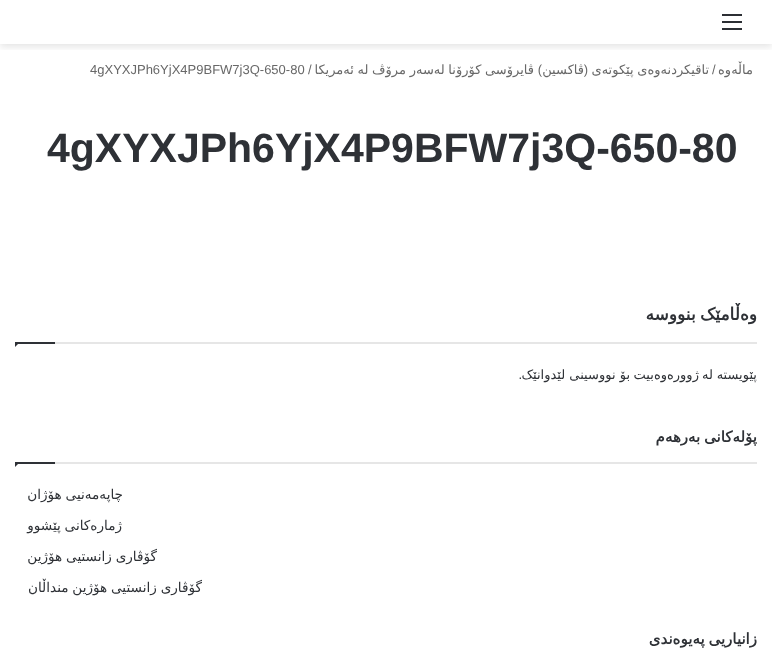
<?xml version="1.0" encoding="UTF-8"?>
<svg xmlns="http://www.w3.org/2000/svg" width="772" height="660">
    <defs>
        <clipPath id="clip1"><rect x="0" y="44" width="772" height="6"/></clipPath>
        <filter id="blur1" x="-50%" y="-200%" width="200%" height="500%"><feGaussianBlur stdDeviation="3.5"/></filter>
    </defs>
    <rect width="100%" height="100%" fill="#FFFFFF"/>
    <g clip-path="url(#clip1)">
        <rect x="0" y="3" width="772" height="44" fill="#000000" fill-opacity="0.1" filter="url(#blur1)"/>
    </g>
    <rect x="722" y="21" width="20" height="2" fill="#2C2F34"/>
    <rect x="722" y="14" width="20" height="2" fill="#2C2F34"/>
    <rect x="722" y="28" width="20" height="2" fill="#2C2F34"/>
    <text x="753" y="74" font-family="DejaVu Sans" font-size="13" direction="rtl" fill="#686868">ماڵەوە</text>
    <text x="712" y="74" font-family="Liberation Sans" font-size="13" fill="#686868">/</text>
    <text x="709" y="74" word-spacing="-0.5" font-family="DejaVu Sans" font-size="13" direction="rtl" fill="#686868">تاقیکردنەوەی پێکوتەی</text>
    <text x="588" y="74" font-family="Liberation Sans" font-size="13" direction="rtl" fill="#686868">(</text>
    <text x="584" y="74" font-family="DejaVu Sans" font-size="13" direction="rtl" fill="#686868">ڤاکسین</text>
    <text x="542" y="74" font-family="Liberation Sans" font-size="13" direction="rtl" fill="#686868">)</text>
    <text x="534" y="74" word-spacing="-0.5" font-family="DejaVu Sans" font-size="13" direction="rtl" fill="#686868">ڤایرۆسی کۆرۆنا لەسەر مرۆڤ لە ئەمریکا</text>
    <text x="308" y="74" font-family="Liberation Sans" font-size="13" fill="#686868">/</text>
    <text x="90" y="74" font-family="Liberation Sans" font-size="13" fill="#686868">4gXYXJPh6YjX4P9BFW7j3Q-650-80</text>
    <text x="47" y="162" font-family="Liberation Sans" font-size="41" font-weight="700" fill="#2E3136">4gXYXJPh6YjX4P9BFW7j3Q-650-80</text>
    <rect x="55" y="342" width="702" height="2" fill="#E6E6E6"/>
    <text x="757" y="320" word-spacing="-1" font-family="DejaVu Sans" font-size="17" font-weight="700" direction="rtl" fill="#2E3136">وەڵامێک بنووسە</text>
    <path d="M 15 342 H 20 L 15 347 Z" fill="#2E3136"/>
    <rect x="15" y="342" width="40" height="2" fill="#2E3136"/>
    <text x="757" y="379" font-family="DejaVu Sans" font-size="13" direction="rtl" fill="#2E3136">پێویستە</text>
    <text x="713" y="379" word-spacing="-1" font-family="DejaVu Sans" font-size="13" direction="rtl" fill="#2E3136">لە ژوورەوەبیت</text>
    <text x="630" y="379" font-family="DejaVu Sans" font-size="13" direction="rtl" fill="#2E3136">بۆ نووسینی لێدوانێک</text>
    <text x="522" y="379" font-family="Liberation Sans" font-size="13" direction="rtl" fill="#2E3136">.</text>
    <rect x="55" y="462" width="702" height="2" fill="#E6E6E6"/>
    <text x="757" y="442" word-spacing="-1" font-family="DejaVu Sans" font-size="15" font-weight="700" direction="rtl" fill="#2E3136">پۆلەکانی بەرهەم</text>
    <path d="M 15 462 H 20 L 15 467 Z" fill="#2E3136"/>
    <rect x="15" y="462" width="40" height="2" fill="#2E3136"/>
    <text x="123" y="499" word-spacing="-0.5" font-family="DejaVu Sans" font-size="13.6" direction="rtl" fill="#2E3136">چاپەمەنیی هۆژان</text>
    <text x="122" y="530" word-spacing="-0.5" font-family="DejaVu Sans" font-size="13.6" direction="rtl" fill="#2E3136">ژمارەکانی پێشوو</text>
    <text x="157" y="561" word-spacing="-0.5" font-family="DejaVu Sans" font-size="13.6" direction="rtl" fill="#2E3136">گۆڤاری زانستیی هۆژین</text>
    <text x="202" y="592" word-spacing="-0.5" font-family="DejaVu Sans" font-size="13.6" direction="rtl" fill="#2E3136">گۆڤاری زانستیی هۆژین منداڵان</text>
    <text x="757" y="644" word-spacing="-1" font-family="DejaVu Sans" font-size="15" font-weight="700" direction="rtl" fill="#2E3136">زانیاریی پەیوەندی</text>
</svg>
